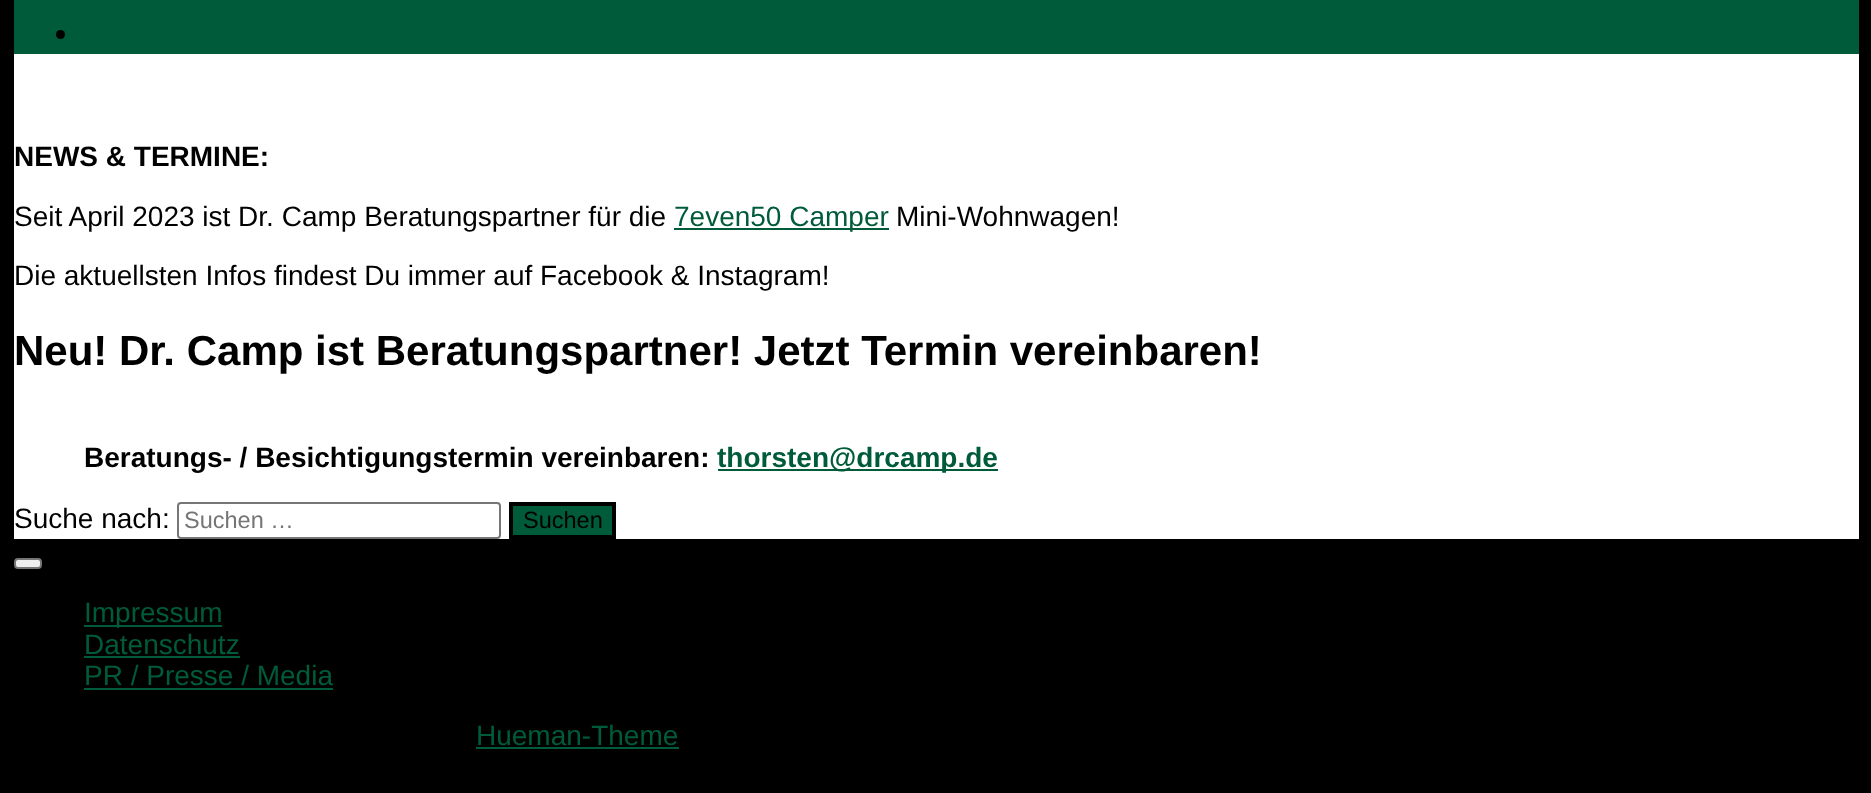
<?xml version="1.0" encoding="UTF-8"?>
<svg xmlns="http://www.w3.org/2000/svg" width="1871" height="793">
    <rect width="100%" height="100%" fill="#000000"/>
    <rect x="14" y="54" width="1845" height="485" fill="#FFFFFF"/>
    <rect x="14" y="0" width="1845" height="54" fill="#005B3A"/>
    <circle cx="60.5" cy="34.5" r="4.5" fill="#000000"/>
    <text x="14" y="166" font-family="Liberation Sans" font-size="28" font-weight="700" fill="#000000">NEWS &amp; TERMINE:</text>
    <text x="14" y="226" font-family="Liberation Sans" font-size="28" fill="#000000">Seit April 2023 ist Dr. Camp Beratungspartner für die</text>
    <rect x="674" y="228" width="215" height="2" fill="#005B3A"/>
    <text x="674" y="226" font-family="Liberation Sans" font-size="28" fill="#005B3A">7even50 Camper</text>
    <text x="896" y="226" font-family="Liberation Sans" font-size="28" fill="#000000">Mini-Wohnwagen!</text>
    <text x="14" y="285" font-family="Liberation Sans" font-size="28" fill="#000000">Die aktuellsten Infos findest Du immer auf Facebook &amp; Instagram!</text>
    <text x="14" y="365" font-family="Liberation Sans" font-size="42" font-weight="700" fill="#000000">Neu! Dr. Camp ist Beratungspartner! Jetzt Termin vereinbaren!</text>
    <text x="84" y="467" font-family="Liberation Sans" font-size="28" font-weight="700" fill="#000000">Beratungs- / Besichtigungstermin vereinbaren:</text>
    <rect x="718" y="469" width="280" height="2" fill="#005B3A"/>
    <text x="717" y="467" font-family="Liberation Sans" font-size="28" font-weight="700" fill="#005B3A">thorsten@drcamp.de</text>
    <text x="14" y="528" font-family="Liberation Sans" font-size="28" fill="#000000">Suche nach:</text>
    <rect x="178" y="503" width="322" height="35" rx="3" fill="none" stroke="#767676" stroke-width="2"/>
    <text x="184" y="528" font-family="Liberation Sans" font-size="23.5" fill="#757575">Suchen …</text>
    <rect x="511" y="504" width="103" height="33" fill="#005B3A" stroke="#000000" stroke-width="4"/>
    <text x="523" y="528" font-family="Liberation Sans" font-size="23.5" fill="#000000">Suchen</text>
    <rect x="15" y="559" width="26" height="9" rx="3" fill="#EFEFEF" stroke="#767676" stroke-width="2"/>
    <rect x="84" y="625" width="138" height="2" fill="#005B3A"/>
    <text font-family="Liberation Sans" font-size="28" fill="#005B3A">
        <tspan x="84" y="622">Impressum</tspan>
        <tspan x="84" y="654">Datenschutz</tspan>
    </text>
    <rect x="84" y="656" width="156" height="2" fill="#005B3A"/>
    <text x="84" y="685" font-family="Liberation Sans" font-size="28" fill="#005B3A">PR / Presse / Media</text>
    <rect x="84" y="688" width="249" height="2" fill="#005B3A"/>
    <text x="476" y="745" font-family="Liberation Sans" font-size="28" fill="#005B3A">Hueman-Theme</text>
    <rect x="476" y="747" width="203" height="2" fill="#005B3A"/>
</svg>
